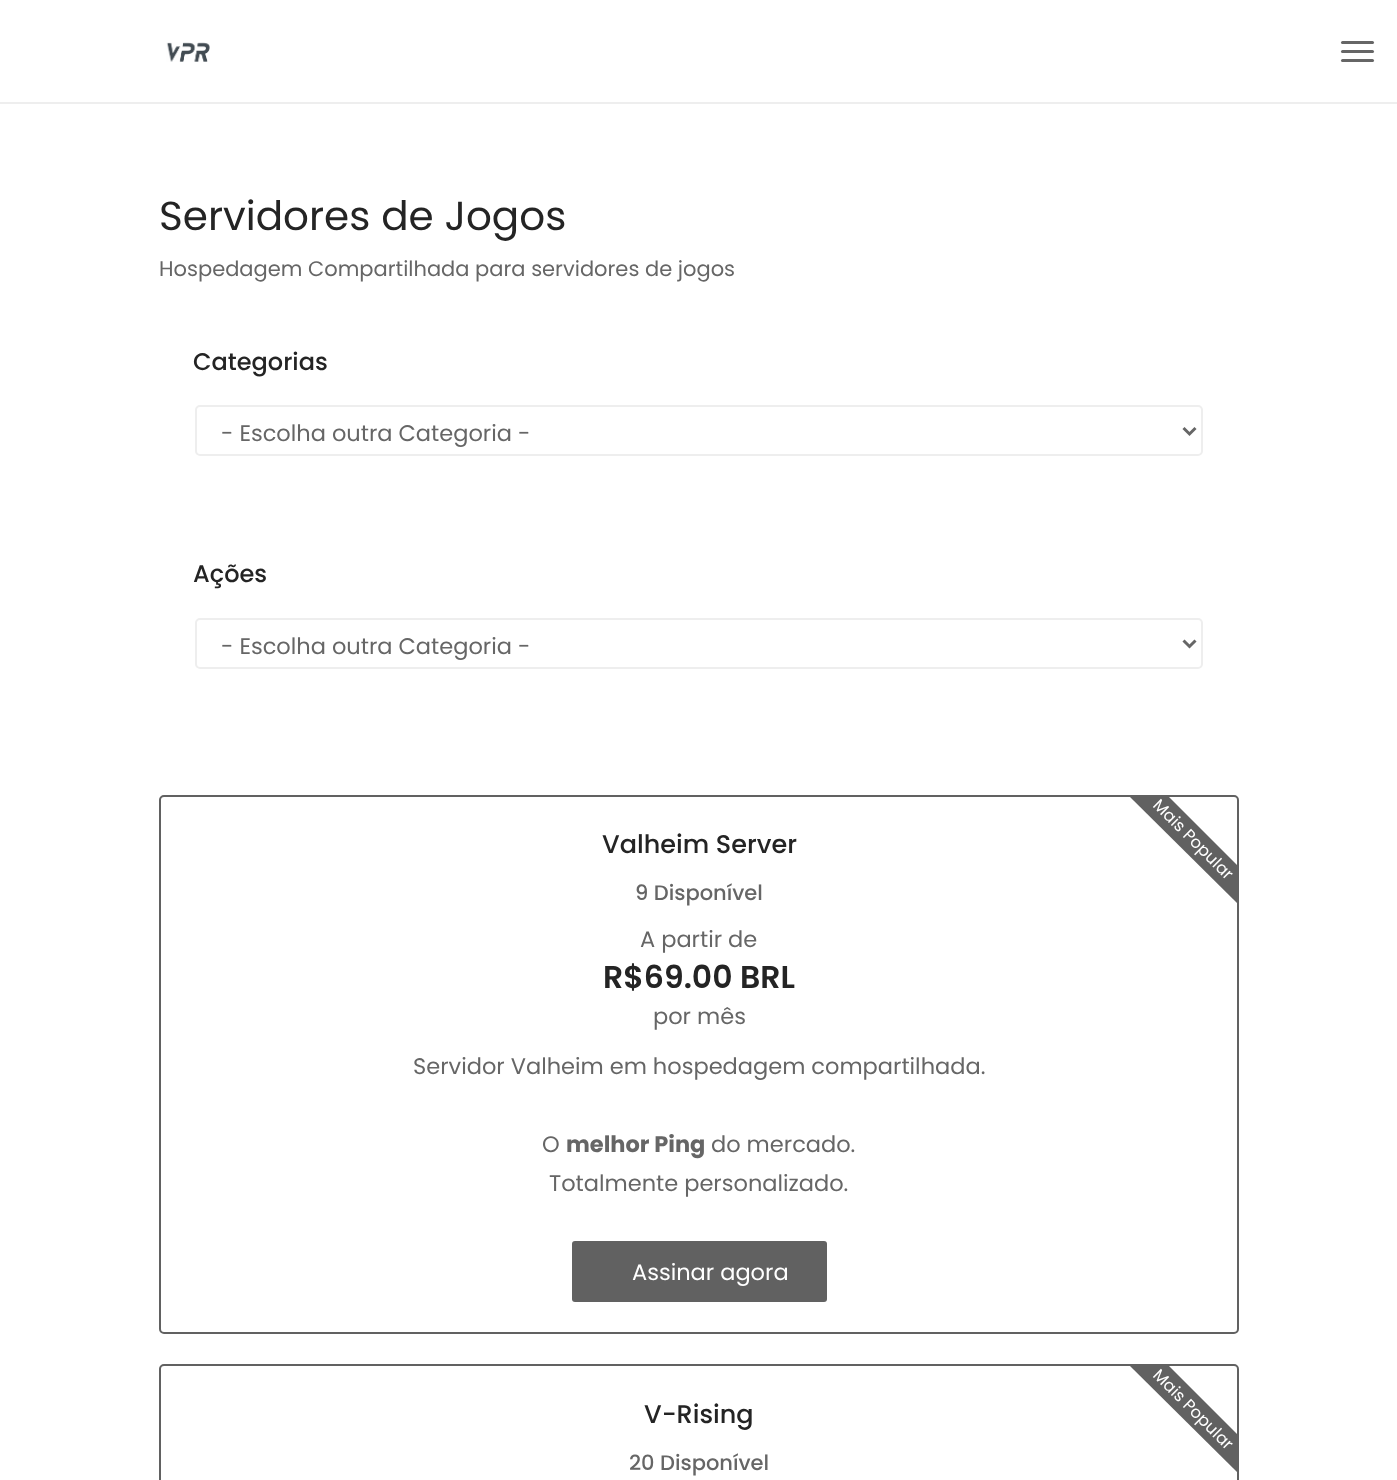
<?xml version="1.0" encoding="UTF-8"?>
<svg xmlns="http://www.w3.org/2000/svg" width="1397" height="1480">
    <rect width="100%" height="100%" fill="#FFFFFF"/>
    <rect x="0" y="102" width="1397" height="2" fill="#EEEEEE"/>
    <image x="166" y="42" width="44" height="20" href="img_01.png"/>
    <rect x="1341" y="41" width="33" height="3" rx="1.5" fill="#666666"/>
    <rect x="1341" y="50" width="33" height="3" rx="1.5" fill="#666666"/>
    <rect x="1341" y="59" width="33" height="3" rx="1.5" fill="#666666"/>
    <text x="159" y="230" font-family="Poppins" font-size="40.5" fill="#242424">Servidores de Jogos</text>
    <text x="159" y="276" font-family="Poppins" font-size="21" fill="#666666">Hospedagem Compartilhada para servidores de jogos</text>
    <text x="193" y="370" font-family="Poppins" font-size="24" font-weight="500" fill="#242424">Categorias</text>
    <rect x="196" y="406" width="1006" height="49" rx="4" fill="none" stroke="#EEEEEE" stroke-width="2"/>
    <path d="M 1183.5 428 L 1189.5 434 L 1195.5 428" fill="none" stroke="#666666" stroke-width="3"/>
    <text x="221" y="441" font-family="Poppins" font-size="22.5" fill="#666666">- Escolha outra Categoria -</text>
    <text x="193" y="582" font-family="Poppins" font-size="24" font-weight="500" fill="#242424">Ações</text>
    <rect x="196" y="619" width="1006" height="49" rx="4" fill="none" stroke="#EEEEEE" stroke-width="2"/>
    <path d="M 1183.5 640.5 L 1189.5 646.5 L 1195.5 640.5" fill="none" stroke="#666666" stroke-width="3"/>
    <text x="221" y="654" font-family="Poppins" font-size="22.5" fill="#666666">- Escolha outra Categoria -</text>
    <rect x="160" y="796" width="1078" height="537" rx="4" fill="none" stroke="#616161" stroke-width="2"/>
    <text x="602" y="853" font-family="Poppins" font-size="25.5" font-weight="500" fill="#242424">Valheim Server</text>
    <text x="635" y="900" font-family="Poppins" font-size="21" font-weight="500" fill="#666666">9 Disponível</text>
    <text x="640" y="947" font-family="Poppins" font-size="22.5" fill="#666666">A partir de</text>
    <text x="603" y="988" font-family="Poppins" font-size="31.5" font-weight="600" fill="#242424">R$69.00 BRL</text>
    <text x="653" y="1024" font-family="Poppins" font-size="22.5" fill="#666666">por mês</text>
    <path d="M 1238 902 L 1237 903 L 1130 797 H 1169 L 1238 866 Z" fill="#616161"/>
    <text x="1152" y="806" transform="rotate(45 1152 806)" font-family="Poppins" font-size="16.5" fill="#FFFFFF">Mais Popular</text>
    <text x="413" y="1074" font-family="Poppins" font-size="22.5" fill="#666666">Servidor Valheim em hospedagem compartilhada.</text>
    <text x="542" y="1152" font-family="Poppins" font-size="22.5" fill="#666666">O</text>
    <text x="566" y="1152" font-family="Poppins" font-size="22.5" font-weight="700" fill="#666666">melhor Ping</text>
    <text x="711" y="1152" font-family="Poppins" font-size="22.5" fill="#666666">do mercado.</text>
    <text x="549" y="1191" font-family="Poppins" font-size="22.5" fill="#666666">Totalmente personalizado.</text>
    <rect x="572" y="1241" width="255" height="61" rx="3" fill="#616161"/>
    <text x="632" y="1280" font-family="Poppins" font-size="22.5" fill="#FFFFFF">Assinar agora</text>
    <rect x="160" y="1365" width="1078" height="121" rx="4" fill="none" stroke="#616161" stroke-width="2"/>
    <text x="644" y="1423" font-family="Poppins" font-size="25.5" font-weight="500" fill="#242424">V-Rising</text>
    <text x="629" y="1470" font-family="Poppins" font-size="21" font-weight="500" fill="#666666">20 Disponível</text>
    <path d="M 1238 1471 L 1237 1472 L 1130 1366 L 1131 1365 H 1168 L 1238 1435 Z" fill="#616161"/>
    <text x="1152" y="1376" transform="rotate(45 1152 1376)" font-family="Poppins" font-size="16.5" fill="#FFFFFF">Mais Popular</text>
</svg>
